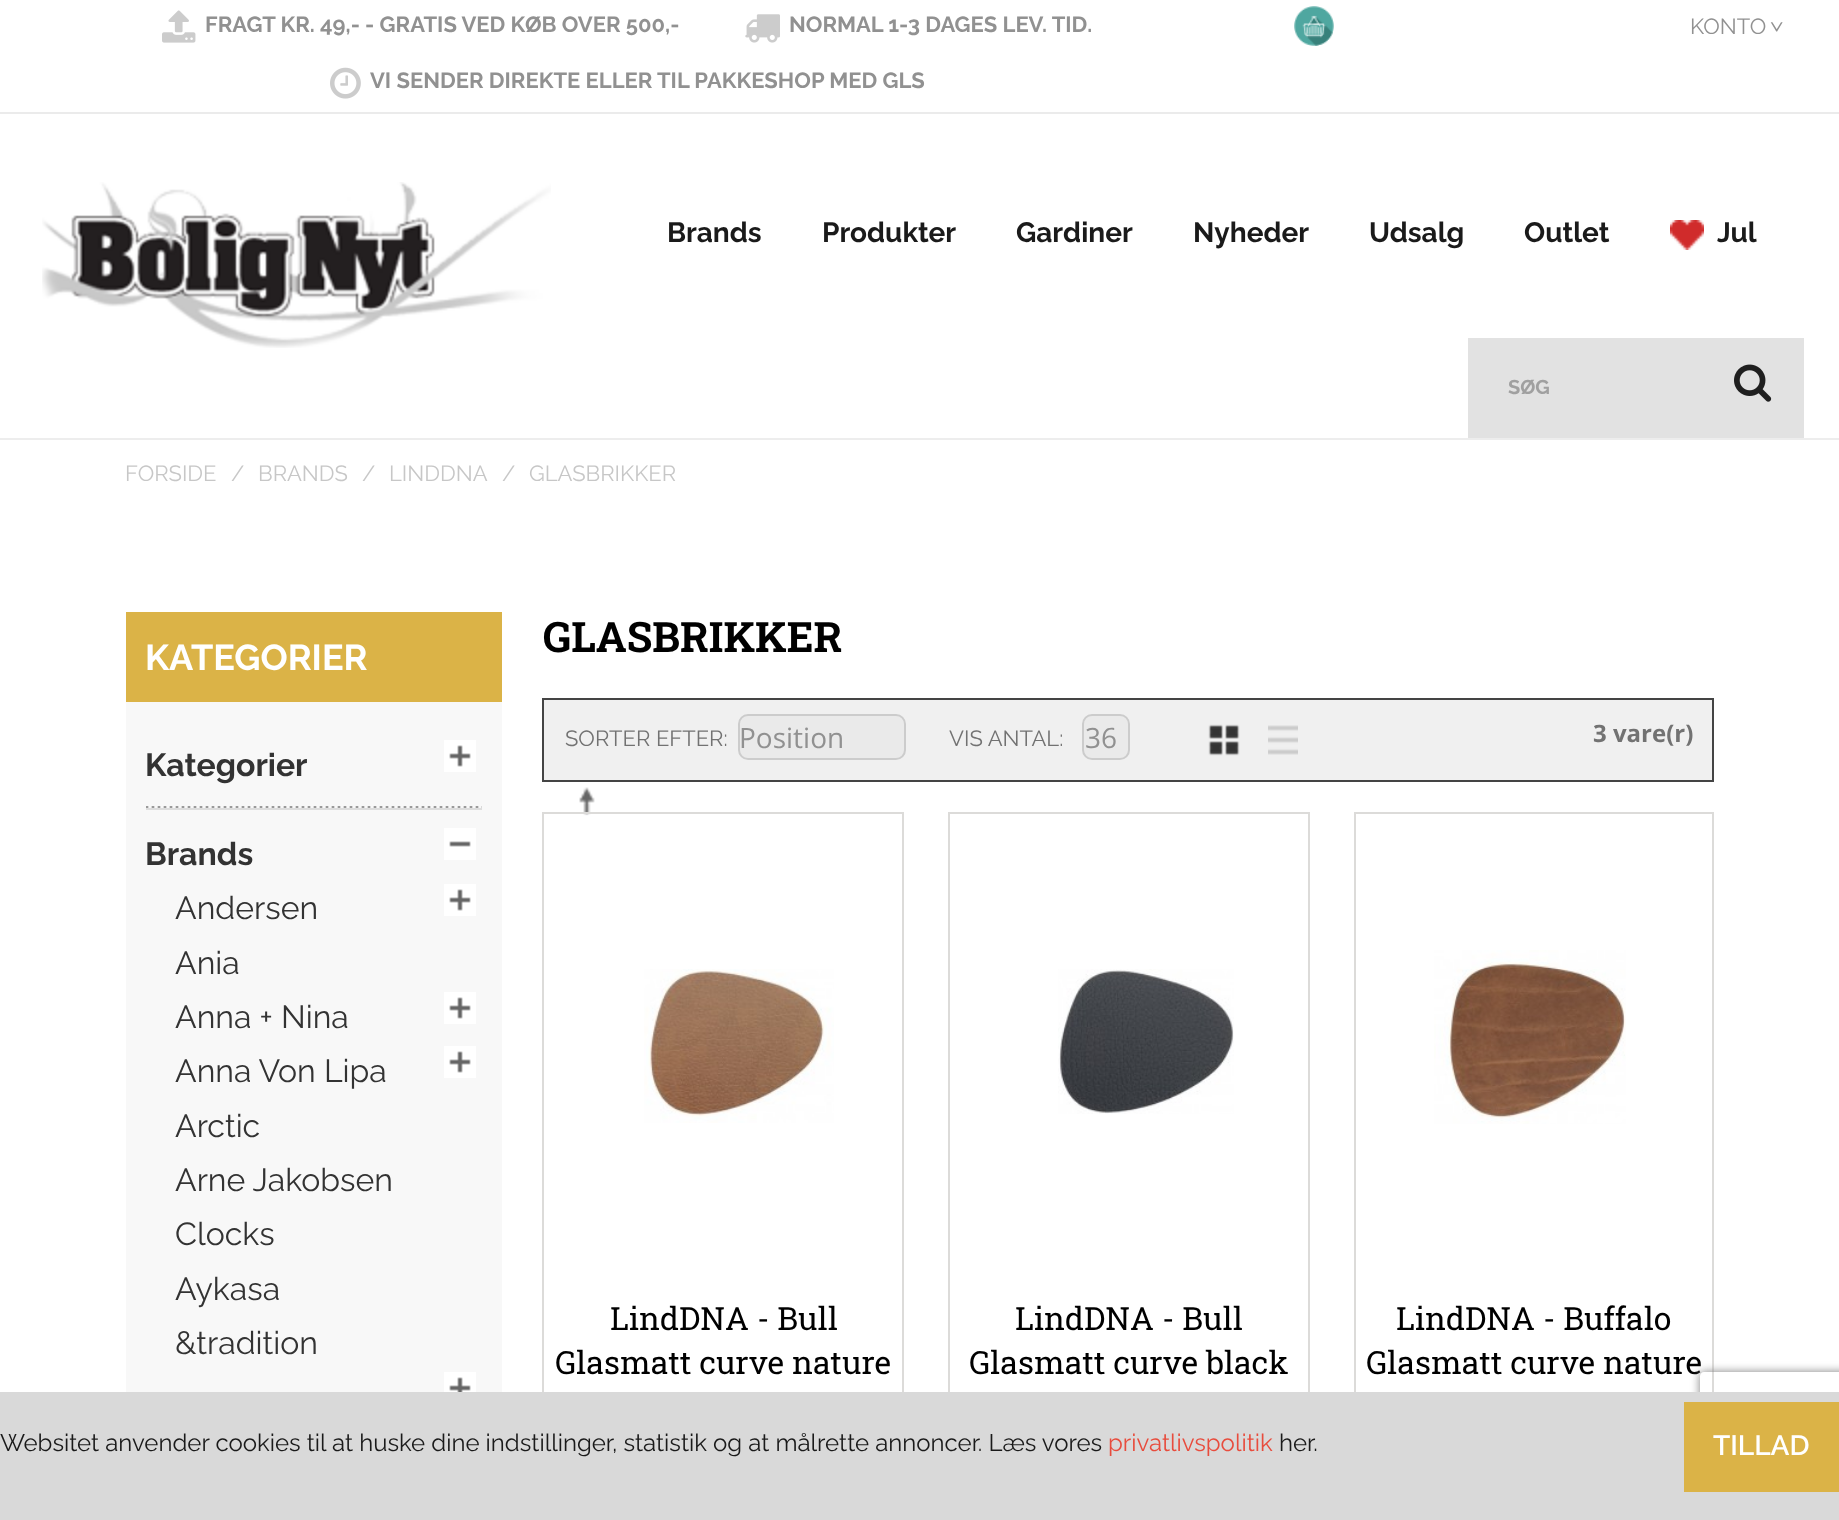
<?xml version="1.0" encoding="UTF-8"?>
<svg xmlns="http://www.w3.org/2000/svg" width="1839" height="1520">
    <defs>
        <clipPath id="clip1"><path d="M 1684 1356 H 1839 V 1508 H 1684 Z M 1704 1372 H 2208 C 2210 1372 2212 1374 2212 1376 V 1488 C 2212 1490 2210 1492 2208 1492 H 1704 C 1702 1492 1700 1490 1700 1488 V 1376 C 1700 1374 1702 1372 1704 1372 Z" clip-rule="evenodd"/></clipPath>
        <filter id="blur1" x="-50%" y="-200%" width="200%" height="500%"><feGaussianBlur stdDeviation="5"/></filter>
    </defs>
    <rect width="100%" height="100%" fill="#FFFFFF"/>
    <rect x="0" y="438" width="1839" height="2" fill="#EDEDED"/>
    <rect x="0" y="112" width="1839" height="2" fill="#EBEBEB"/>
    <image x="162" y="10" width="34" height="33" href="img_01.png"/>
    <text x="205" y="32" font-family="Raleway" font-size="22" font-weight="700" fill="#919191">FRAGT KR. 49,- - GRATIS VED KØB OVER 500,-</text>
    <image x="745" y="14" width="35" height="29" href="img_02.png"/>
    <text x="789" y="32" font-family="Raleway" font-size="22" font-weight="700" fill="#919191">NORMAL 1-3 DAGES LEV. TID.</text>
    <image x="330" y="67" width="31" height="32" href="img_03.png"/>
    <text x="370" y="88" font-family="Raleway" font-size="22" font-weight="700" fill="#919191">VI SENDER DIREKTE ELLER TIL PAKKESHOP MED GLS</text>
    <image x="1294" y="6" width="40" height="40" href="img_04.png"/>
    <text x="1690" y="34" font-family="Raleway" font-size="22" fill="#919191">KONTO</text>
    <text x="1771" y="21" transform="rotate(90 1771 21)" font-family="Raleway" font-size="22" fill="#919191">&gt;</text>
    <image x="42" y="182" width="509" height="166" href="img_05.png"/>
    <text x="667" y="242" font-family="Raleway" font-size="28" font-weight="700" fill="#1A1A1A">Brands</text>
    <text x="822" y="242" font-family="Raleway" font-size="28" font-weight="700" fill="#1A1A1A">Produkter</text>
    <text x="1016" y="242" font-family="Raleway" font-size="28" font-weight="700" fill="#1A1A1A">Gardiner</text>
    <text x="1193" y="242" font-family="Raleway" font-size="28" font-weight="700" fill="#1A1A1A">Nyheder</text>
    <text x="1369" y="242" font-family="Raleway" font-size="28" font-weight="700" fill="#1A1A1A">Udsalg</text>
    <text x="1524" y="242" font-family="Raleway" font-size="28" font-weight="700" fill="#1A1A1A">Outlet</text>
    <image x="1670" y="220" width="34" height="30" href="img_06.png"/>
    <text x="1717" y="242" font-family="Raleway" font-size="28" font-weight="700" fill="#1A1A1A">Jul</text>
    <rect x="1468" y="338" width="336" height="100" fill="#E2E2E2"/>
    <text x="1508" y="394" font-family="Raleway" font-size="20" font-weight="700" fill="#A0A0A0">SØG</text>
    <image x="1734" y="364" width="38" height="38" href="img_07.png"/>
    <text x="125" y="481" font-family="Raleway" font-size="22" fill="#C7C7C7">FORSIDE</text>
    <text x="231" y="481" font-family="Raleway" font-size="22" fill="#C7C7C7">/</text>
    <text x="258" y="481" font-family="Raleway" font-size="22" fill="#C7C7C7">BRANDS</text>
    <text x="362" y="481" font-family="Raleway" font-size="22" fill="#C7C7C7">/</text>
    <text x="389" y="481" font-family="Raleway" font-size="22" fill="#C7C7C7">LINDDNA</text>
    <text x="502" y="481" font-family="Raleway" font-size="22" fill="#C7C7C7">/</text>
    <text x="529" y="481" font-family="Raleway" font-size="22" fill="#C7C7C7">GLASBRIKKER</text>
    <rect x="126" y="612" width="376" height="90" fill="#DBB347"/>
    <text x="145" y="670" font-family="Raleway" font-size="36" font-weight="700" fill="#FFFFFF">KATEGORIER</text>
    <rect x="126" y="702" width="376" height="690" fill="#F8F8F8"/>
    <image x="146" y="806" width="336" height="2" href="img_08.png"/>
    <rect x="146" y="808" width="336" height="2" fill="#DDDDDD"/>
    <text x="145" y="776" font-family="Raleway" font-size="32" font-weight="700" fill="#333333">Kategorier</text>
    <image x="444" y="740" width="32" height="32" href="img_09.png"/>
    <text x="145" y="865" font-family="Raleway" font-size="32" font-weight="700" fill="#333333">Brands</text>
    <image x="444" y="828" width="32" height="32" href="img_10.png"/>
    <text x="175" y="919" font-family="Raleway" font-size="32" fill="#333333">Andersen</text>
    <image x="444" y="884" width="32" height="32" href="img_09.png"/>
    <text font-family="Raleway" font-size="32" fill="#333333">
        <tspan x="175" y="974">Ania</tspan>
        <tspan x="175" y="1028">Anna + Nina</tspan>
    </text>
    <image x="444" y="992" width="32" height="32" href="img_09.png"/>
    <text x="175" y="1082" font-family="Raleway" font-size="32" fill="#333333">Anna Von Lipa</text>
    <image x="444" y="1046" width="32" height="32" href="img_09.png"/>
    <text font-family="Raleway" font-size="32" fill="#333333">
        <tspan x="175" y="1137">Arctic</tspan>
        <tspan x="175" y="1191">Arne Jakobsen</tspan>
        <tspan x="175" y="1245">Clocks</tspan>
        <tspan x="175" y="1300">Aykasa</tspan>
        <tspan x="175" y="1354">&amp;tradition</tspan>
    </text>
    <image x="444" y="1372" width="32" height="20" href="img_11.png"/>
    <text x="543" y="652" font-family="Roboto Slab" font-size="42" font-weight="700" fill="#000000">GLASBRIKKER</text>
    <rect x="543" y="699" width="1170" height="82" fill="#F0F0F0" stroke="#444444" stroke-width="2"/>
    <text x="565" y="746" font-family="Raleway" font-size="22" fill="#727272">SORTER EFTER:</text>
    <rect x="739" y="715" width="166" height="44" rx="9" fill="#EAEAEA" stroke="#CCCCCC" stroke-width="2"/>
    <text x="739" y="748" font-family="Open Sans" font-size="28" fill="#919191">Position</text>
    <image x="579" y="787" width="16" height="29" href="img_12.png"/>
    <text x="949" y="746" font-family="Raleway" font-size="22" fill="#727272">VIS ANTAL:</text>
    <rect x="1083" y="715" width="46" height="44" rx="9" fill="#EAEAEA" stroke="#CCCCCC" stroke-width="2"/>
    <text x="1085" y="748" font-family="Open Sans" font-size="28" fill="#919191">36</text>
    <image x="1208" y="724" width="32" height="32" href="img_13.png"/>
    <image x="1268" y="725" width="30" height="30" href="img_14.png"/>
    <text x="1593" y="742" font-family="Open Sans" font-size="24" font-weight="700" fill="#727272">3 vare(r)</text>
    <rect x="543" y="813" width="360" height="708" fill="none" stroke="#DCDBD9" stroke-width="2"/>
    <image x="644" y="969" width="190" height="154" href="img_15.png"/>
    <text x="610" y="1330" font-family="Roboto Slab" font-size="32" fill="#000000">LindDNA - Bull</text>
    <text x="555" y="1374" font-family="Roboto Slab" font-size="32" fill="#000000">Glasmatt curve nature</text>
    <rect x="949" y="813" width="360" height="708" fill="none" stroke="#DCDBD9" stroke-width="2"/>
    <image x="1058" y="969" width="176" height="145" href="img_16.png"/>
    <text x="1015" y="1330" font-family="Roboto Slab" font-size="32" fill="#000000">LindDNA - Bull</text>
    <text x="969" y="1374" font-family="Roboto Slab" font-size="32" fill="#000000">Glasmatt curve black</text>
    <rect x="1355" y="813" width="358" height="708" fill="none" stroke="#DCDBD9" stroke-width="2"/>
    <image x="1434" y="950" width="192" height="174" href="img_17.png"/>
    <text x="1396" y="1330" font-family="Roboto Slab" font-size="32" fill="#000000">LindDNA - Buffalo</text>
    <text x="1366" y="1374" font-family="Roboto Slab" font-size="32" fill="#000000">Glasmatt curve nature</text>
    <g clip-path="url(#clip1)">
        <rect x="1700" y="1372" width="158" height="120" rx="4" fill="#808080" filter="url(#blur1)"/>
    </g>
    <rect x="0" y="1392" width="1839" height="128" fill="#D9D9D9"/>
    <text x="0" y="1451" font-family="Raleway" font-size="24" fill="#1A1A1A">Websitet anvender cookies til at huske dine indstillinger, statistik og at målrette annoncer. Læs vores</text>
    <text x="1108" y="1451" font-family="Raleway" font-size="24" fill="#E84C3D">privatlivspolitik</text>
    <text x="1279" y="1451" font-family="Raleway" font-size="24" fill="#1A1A1A">her.</text>
    <rect x="1684" y="1402" width="155" height="90" fill="#DBB347"/>
    <text x="1713" y="1455" font-family="Raleway" font-size="28" font-weight="600" fill="#FFFFFF">TILLAD</text>
</svg>
